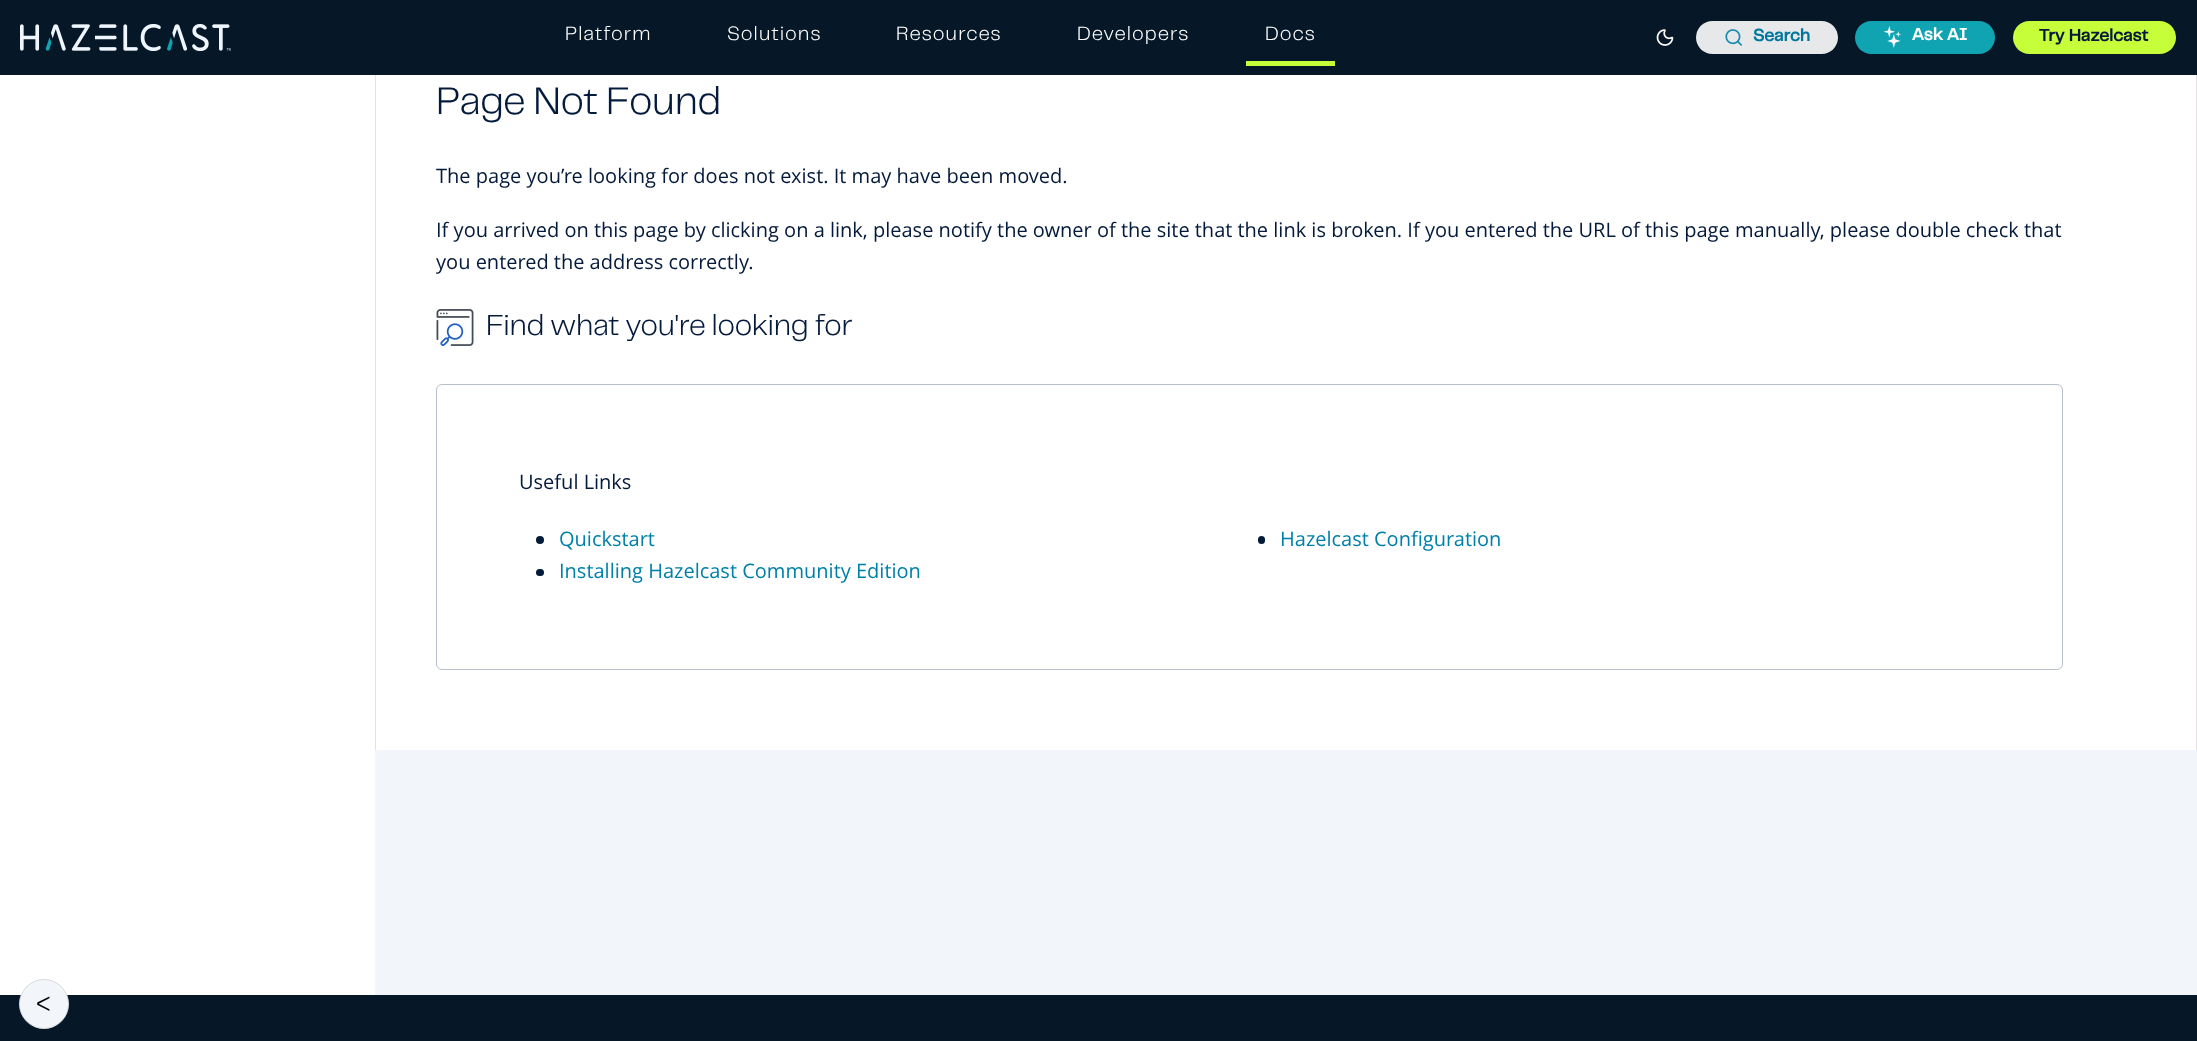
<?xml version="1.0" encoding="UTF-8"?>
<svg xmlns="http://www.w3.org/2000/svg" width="2197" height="1041">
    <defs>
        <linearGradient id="g1" gradientUnits="userSpaceOnUse" x1="1751" y1="141" x2="1924" y2="-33"><stop offset="0.5" stop-color="#E6E8E9"/><stop offset="0.75" stop-color="#E6E8E9"/><stop offset="1" stop-color="#0F96A5"/></linearGradient>
    </defs>
    <rect width="100%" height="100%" fill="#F2F5F9"/>
    <rect x="0" y="0" width="2197" height="75" fill="#061827"/>
    <image x="20" y="24" width="211" height="27" href="img_01.png"/>
    <text x="565" y="40" font-family="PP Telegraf" font-size="20" font-weight="300" letter-spacing="1.25" fill="#FFFFFF">Platform</text>
    <text x="727" y="40" font-family="PP Telegraf" font-size="20" font-weight="300" letter-spacing="1.25" fill="#FFFFFF">Solutions</text>
    <text x="896" y="40" font-family="PP Telegraf" font-size="20" font-weight="300" letter-spacing="1.25" fill="#FFFFFF">Resources</text>
    <text x="1077" y="40" font-family="PP Telegraf" font-size="20" font-weight="300" letter-spacing="1.25" fill="#FFFFFF">Developers</text>
    <rect x="1246" y="61" width="89" height="5" fill="#C6FF3A"/>
    <text x="1265" y="40" font-family="PP Telegraf" font-size="20" font-weight="300" letter-spacing="1.25" fill="#FFFFFF">Docs</text>
    <image x="1656" y="29" width="18" height="17" href="img_02.png"/>
    <rect x="1696" y="21" width="142" height="33" rx="16.5" fill="url(#g1)"/>
    <image x="1725" y="29" width="17" height="17" href="img_03.png"/>
    <text x="1753" y="41" font-family="PP Telegraf" font-size="17.5" font-weight="700" fill="#01769C">Search</text>
    <rect x="1855" y="21" width="140" height="33" rx="16.5" fill="#10A4B3"/>
    <image x="1883" y="26" width="18" height="22" href="img_04.png"/>
    <text x="1912" y="40" font-family="PP Telegraf" font-size="17.5" font-weight="700" fill="#FFFFFF">Ask AI</text>
    <rect x="2013" y="21" width="163" height="33" rx="16.5" fill="#C6FF3A"/>
    <text x="2039" y="41" font-family="PP Telegraf" font-size="17.5" font-weight="700" fill="#041A3B">Try Hazelcast</text>
    <rect x="0" y="75" width="375" height="920" fill="#FFFFFF"/>
    <rect x="376" y="75" width="1820" height="675" fill="#FFFFFF"/>
    <rect x="2196" y="75" width="1" height="675" fill="#E4E2E2"/>
    <rect x="375" y="75" width="1" height="675" fill="#E4E2E2"/>
    <text x="436" y="114" font-family="PP Telegraf" font-size="40" font-weight="300" fill="#041A3B">Page Not Found</text>
    <text x="436" y="183" font-family="Open Sans" font-size="20" fill="#041A3B">The page you’re looking for does not exist. It may have been moved.</text>
    <text font-family="Open Sans" font-size="20" fill="#041A3B">
        <tspan x="436" y="237">If you arrived on this page by clicking on a link, please notify the owner of the site that the link is broken. If you entered the URL of this page manually, please double check that</tspan>
        <tspan x="436" y="269">you entered the address correctly.</tspan>
    </text>
    <image x="436" y="309" width="38" height="37" href="img_05.png"/>
    <text x="486" y="335" font-family="PP Telegraf" font-size="30" font-weight="300" fill="#041A3B">Find what you're looking for</text>
    <rect x="436.5" y="384.5" width="1626" height="285" rx="5.5" fill="none" stroke="#B7C1CB"/>
    <text x="519" y="489" font-family="Open Sans" font-size="20" fill="#041A3B">Useful Links</text>
    <circle cx="540" cy="540" r="4" fill="#041A3B"/>
    <text x="559" y="546" font-family="Open Sans" font-size="20" fill="#0080A9">Quickstart</text>
    <rect x="1258" y="536" width="7" height="8" rx="3.5" fill="#041A3B"/>
    <text x="1280" y="546" font-family="Open Sans" font-size="20" fill="#0080A9">Hazelcast Configuration</text>
    <rect x="536" y="569" width="8" height="7" rx="3.5" fill="#041A3B"/>
    <text x="559" y="578" font-family="Open Sans" font-size="20" fill="#0080A9">Installing Hazelcast Community Edition</text>
    <rect x="0" y="995" width="2197" height="46" fill="#061827"/>
    <circle cx="44" cy="1004" r="24.5" fill="#F2F5F9" stroke="#DADADA"/>
    <text x="36" y="1011" font-family="DejaVu Sans" font-size="20" fill="#000000">ᐸ</text>
</svg>
